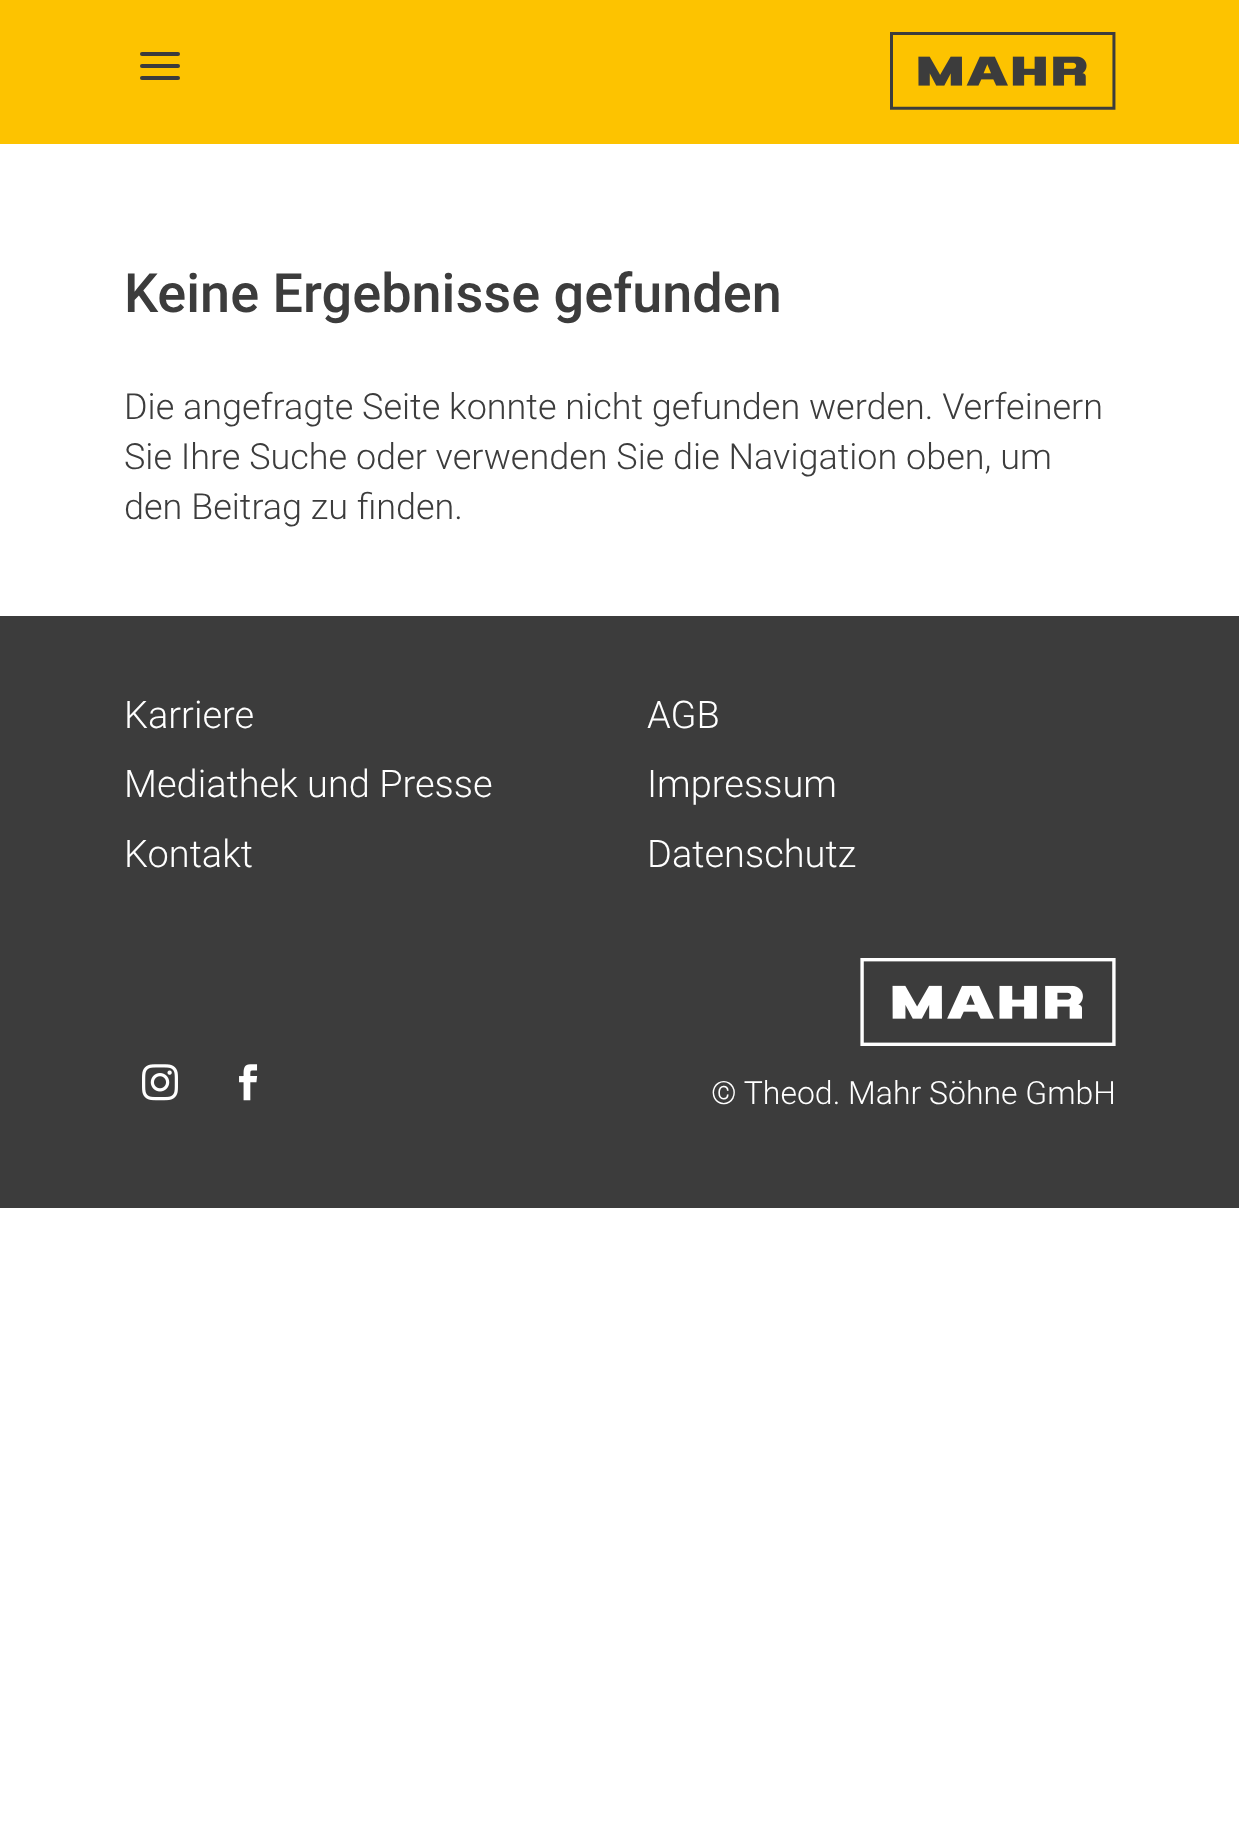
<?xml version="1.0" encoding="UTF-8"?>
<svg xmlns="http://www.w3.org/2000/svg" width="1239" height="1828">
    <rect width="100%" height="100%" fill="#FFFFFF"/>
    <rect x="0" y="0" width="1239" height="144" fill="#FDC300"/>
    <rect x="140" y="76" width="40" height="4" rx="2" fill="#3C3C3C"/>
    <rect x="140" y="52" width="40" height="4" rx="2" fill="#3C3C3C"/>
    <rect x="140" y="64" width="40" height="4" rx="2" fill="#3C3C3C"/>
    <image x="890" y="32" width="226" height="78" href="img_01.png"/>
    <text x="124" y="312" font-family="Roboto" font-size="54" font-weight="500" fill="#3C3C3C">Keine Ergebnisse gefunden</text>
    <text font-family="Roboto" font-size="36" font-weight="300" fill="#3C3C3C">
        <tspan x="124" y="419">Die angefragte Seite konnte nicht gefunden werden. Verfeinern</tspan>
        <tspan x="124" y="469">Sie Ihre Suche oder verwenden Sie die Navigation oben, um</tspan>
        <tspan x="124" y="519">den Beitrag zu finden.</tspan>
    </text>
    <rect x="0" y="616" width="1239" height="592" fill="#3C3C3C"/>
    <text font-family="Roboto" font-size="38" font-weight="300" fill="#FFFFFF">
        <tspan x="124" y="728">Karriere</tspan>
        <tspan x="124" y="797">Mediathek und Presse</tspan>
        <tspan x="124" y="867">Kontakt</tspan>
    </text>
    <text font-family="Roboto" font-size="38" font-weight="300" fill="#FFFFFF">
        <tspan x="647" y="728">AGB</tspan>
        <tspan x="647" y="797">Impressum</tspan>
        <tspan x="647" y="867">Datenschutz</tspan>
    </text>
    <image x="142" y="1064" width="36" height="37" href="img_02.png"/>
    <image x="239" y="1064" width="19" height="37" href="img_03.png"/>
    <image x="860" y="958" width="256" height="88" href="img_04.png"/>
    <text x="711" y="1104" font-family="Roboto" font-size="32" font-weight="300" fill="#FFFFFF">© Theod. Mahr Söhne GmbH</text>
</svg>
